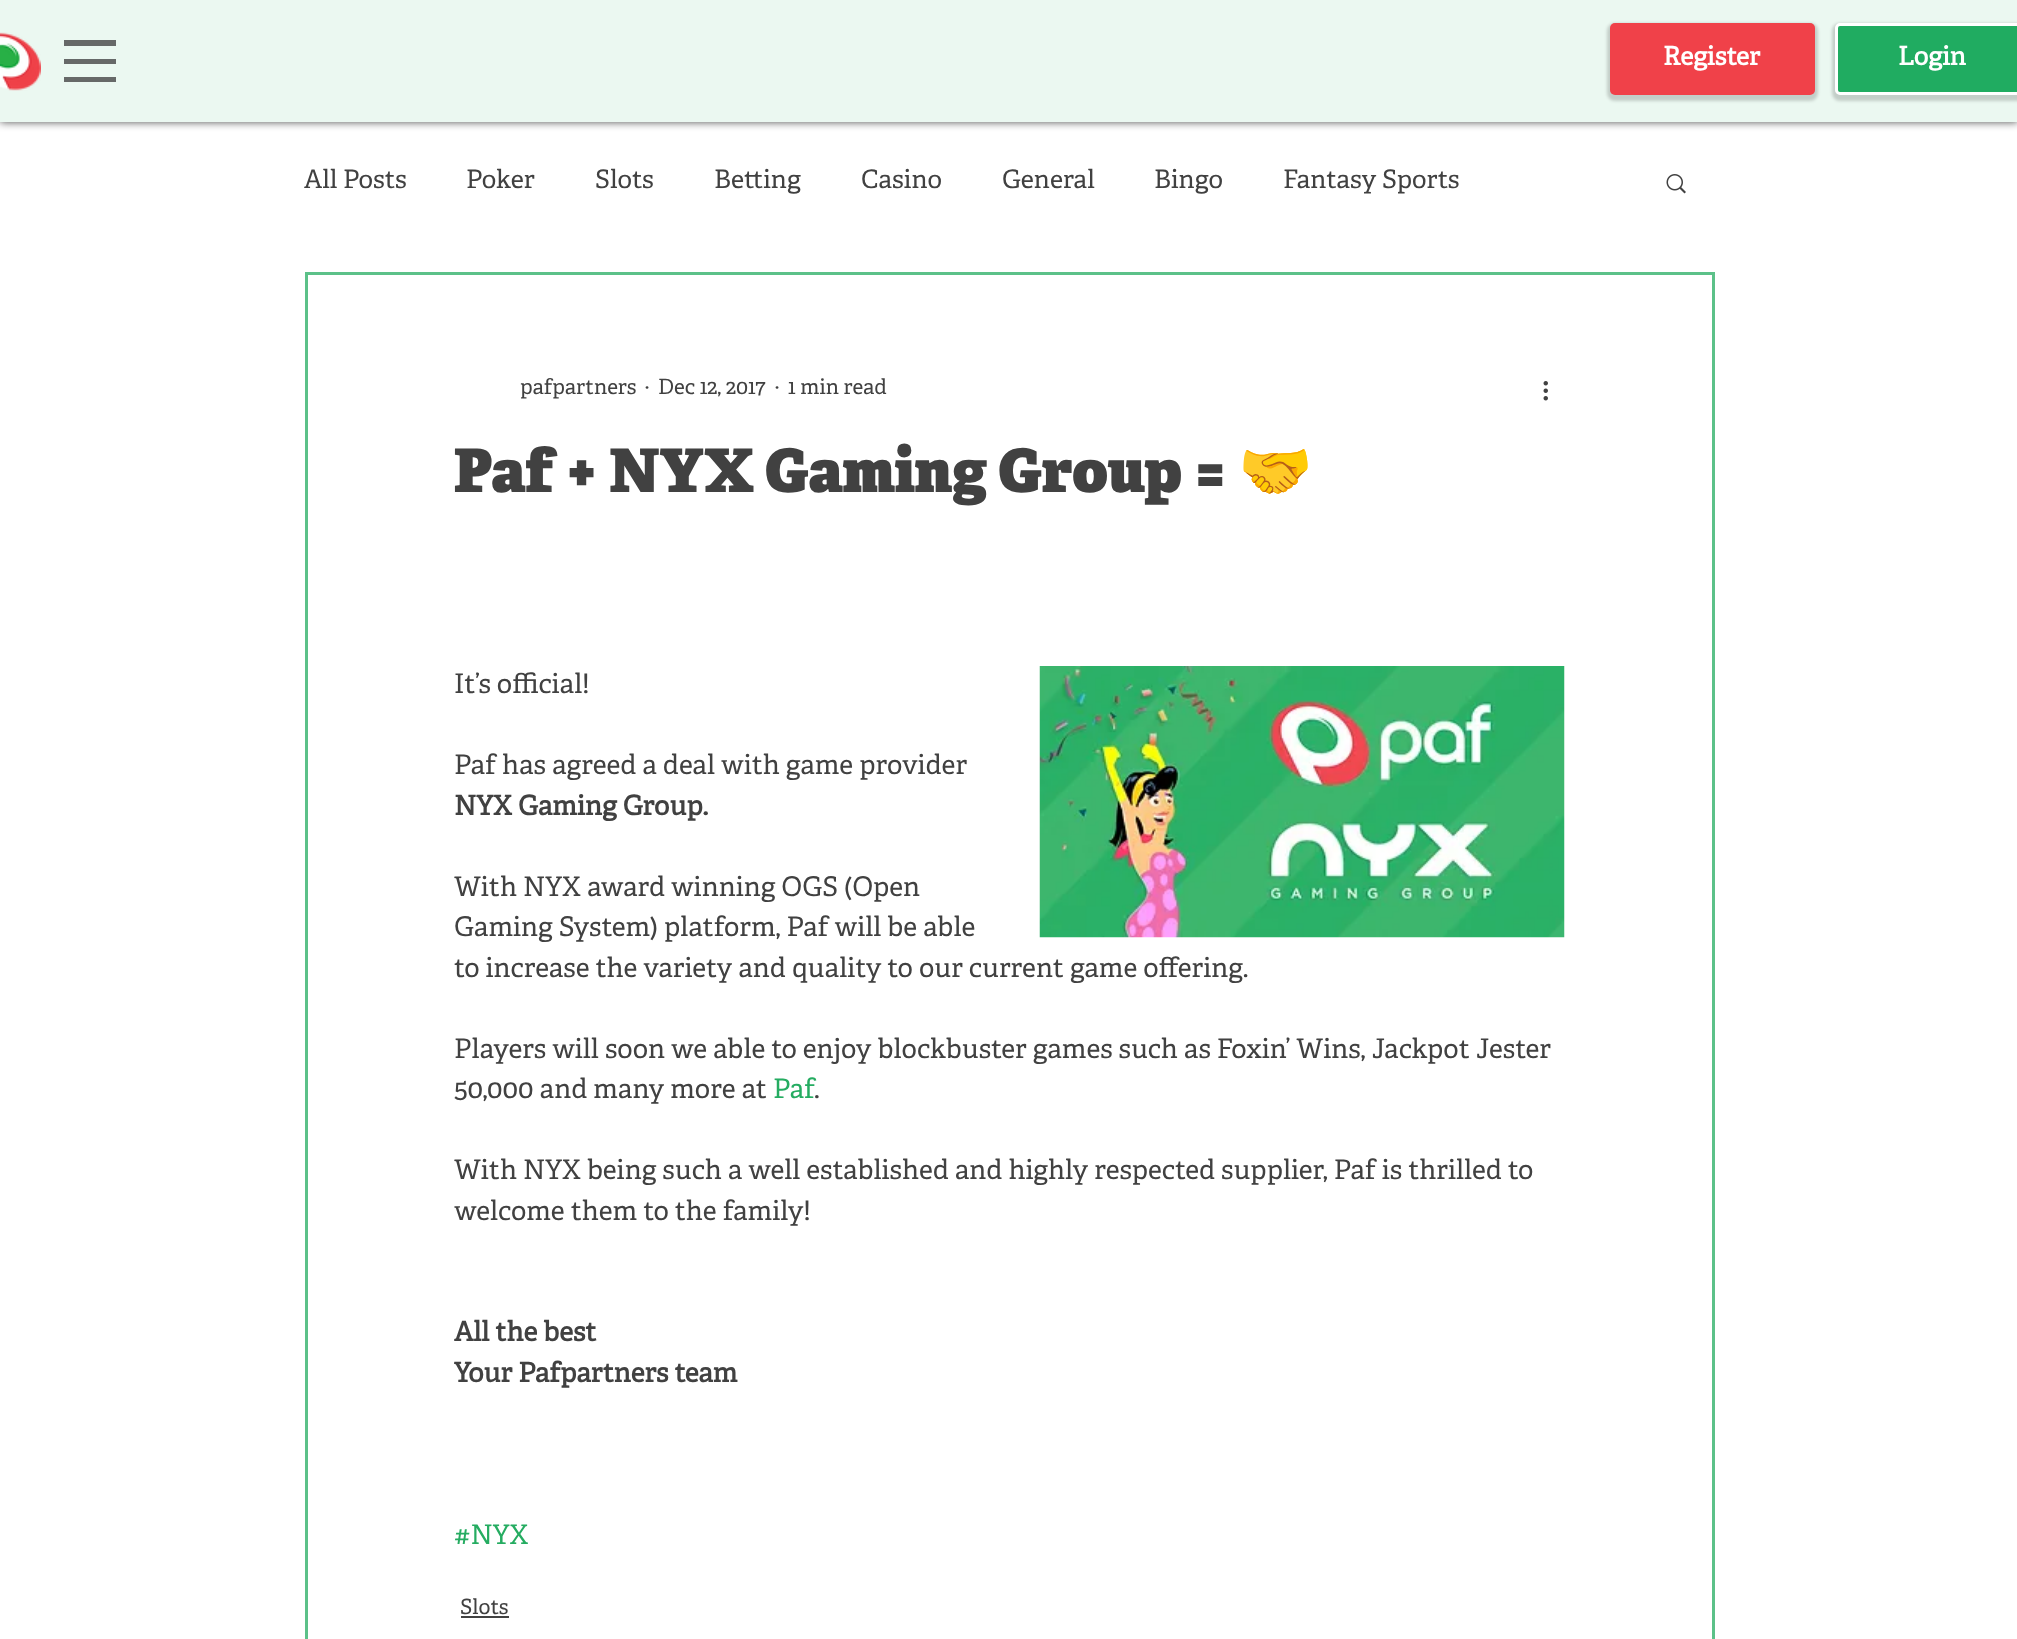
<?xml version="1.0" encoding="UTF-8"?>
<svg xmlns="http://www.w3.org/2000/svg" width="2017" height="1639">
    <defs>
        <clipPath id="clip1"><path d="M 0 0 H 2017 V 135 H 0 Z M 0 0 H 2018 V 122 H 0 Z" clip-rule="evenodd"/></clipPath>
        <filter id="blur1" x="-50%" y="-200%" width="200%" height="500%"><feGaussianBlur stdDeviation="4"/></filter>
        <filter id="blur2" x="-50%" y="-200%" width="200%" height="500%"><feGaussianBlur stdDeviation="1.5"/></filter>
    </defs>
    <rect width="100%" height="100%" fill="#FFFFFF"/>
    <g clip-path="url(#clip1)">
        <rect x="0" y="0" width="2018" height="122" fill="#000000" fill-opacity="0.7" filter="url(#blur1)"/>
    </g>
    <rect x="0" y="0" width="2017" height="122" fill="#25AC61" fill-opacity="0.09"/>
    <image x="0" y="32" width="41" height="59" href="img_01.png"/>
    <rect x="64" y="77" width="52" height="5" fill="#666968"/>
    <rect x="64" y="40" width="52" height="6" fill="#666968"/>
    <rect x="64" y="59" width="52" height="5" fill="#666968"/>
    <rect x="1607" y="23" width="211" height="78" rx="8" fill="#000000" fill-opacity="0.17" filter="url(#blur2)"/>
    <rect x="1610" y="23" width="205" height="72" rx="5" fill="#F04149"/>
    <text x="1663" y="65" font-family="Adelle" font-size="25.5" font-weight="700" fill="#FFFFFF">Register</text>
    <rect x="1832" y="23" width="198" height="78" rx="8" fill="#000000" fill-opacity="0.17" filter="url(#blur2)"/>
    <rect x="1836.5" y="24.5" width="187" height="69" rx="3.5" fill="#20AC61" stroke="#FFFFFF" stroke-width="3"/>
    <text x="1898" y="65" font-family="Adelle" font-size="25.5" font-weight="700" fill="#FFFFFF">Login</text>
    <text x="304" y="188" font-family="Adelle" font-size="25.5" fill="#414141">All Posts</text>
    <text x="466" y="188" font-family="Adelle" font-size="25.5" fill="#414141">Poker</text>
    <text x="595" y="188" font-family="Adelle" font-size="25.5" fill="#414141">Slots</text>
    <text x="714" y="188" font-family="Adelle" font-size="25.5" fill="#414141">Betting</text>
    <text x="861" y="188" font-family="Adelle" font-size="25.5" fill="#414141">Casino</text>
    <text x="1002" y="188" font-family="Adelle" font-size="25.5" fill="#414141">General</text>
    <text x="1154" y="188" font-family="Adelle" font-size="25.5" fill="#414141">Bingo</text>
    <text x="1283" y="188" font-family="Adelle" font-size="25.5" fill="#414141">Fantasy Sports</text>
    <image x="1666" y="174" width="20" height="20" href="img_02.png"/>
    <rect x="306.5" y="273.5" width="1407" height="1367" fill="none" stroke="#5CC189" stroke-width="3"/>
    <text x="520" y="394" font-family="Adelle" font-size="21" fill="#414141">pafpartners</text>
    <text x="645" y="394" font-family="Adelle" font-size="21" fill="#414141">·</text>
    <text x="658" y="394" font-family="Adelle" font-size="21" fill="#414141">Dec 12, 2017</text>
    <text x="775" y="394" font-family="Adelle" font-size="21" fill="#414141">·</text>
    <text x="788" y="394" font-family="Adelle" font-size="21" fill="#414141">1 min read</text>
    <image x="1543" y="381" width="5" height="20" href="img_03.png"/>
    <text x="454" y="492" font-family="Adelle" font-size="60" font-weight="900" fill="#414141">Paf + NYX Gaming Group =</text>
    <text x="1238" y="492" font-family="Noto Color Emoji" font-size="60" fill="#414141">🤝</text>
    <text x="454" y="693" font-family="Adelle" font-size="27" fill="#414141">It’s official!</text>
    <image x="1039" y="666" width="526" height="272" href="img_04.png"/>
    <text x="454" y="774" font-family="Adelle" font-size="27" fill="#414141">Paf has agreed a deal with game provider</text>
    <text x="454" y="815" font-family="Adelle" font-size="27" font-weight="700" fill="#414141">NYX Gaming Group.</text>
    <text font-family="Adelle" font-size="27" fill="#414141">
        <tspan x="454" y="896">With NYX award winning OGS (Open</tspan>
        <tspan x="454" y="936">Gaming System) platform, Paf will be able</tspan>
        <tspan x="454" y="977">to increase the variety and quality to our current game offering.</tspan>
    </text>
    <text font-family="Adelle" font-size="27" fill="#414141">
        <tspan x="454" y="1058">Players will soon we able to enjoy blockbuster games such as Foxin’ Wins, Jackpot Jester</tspan>
        <tspan x="454" y="1098">50,000 and many more at</tspan>
    </text>
    <text x="773" y="1098" font-family="Adelle" font-size="27" fill="#25AC61">Paf</text>
    <text x="814" y="1098" font-family="Adelle" font-size="27" fill="#414141">.</text>
    <text font-family="Adelle" font-size="27" fill="#414141">
        <tspan x="454" y="1179">With NYX being such a well established and highly respected supplier, Paf is thrilled to</tspan>
        <tspan x="454" y="1220">welcome them to the family!</tspan>
    </text>
    <text font-family="Adelle" font-size="27" font-weight="700" fill="#414141">
        <tspan x="454" y="1341">All the best</tspan>
        <tspan x="454" y="1382">Your Pafpartners team</tspan>
    </text>
    <text x="454" y="1544" font-family="Adelle" font-size="27" fill="#25AC61">#NYX</text>
    <text x="460" y="1614" font-family="Adelle" font-size="21" fill="#414141">Slots</text>
    <rect x="461" y="1616" width="48" height="2" fill="#414141"/>
</svg>
